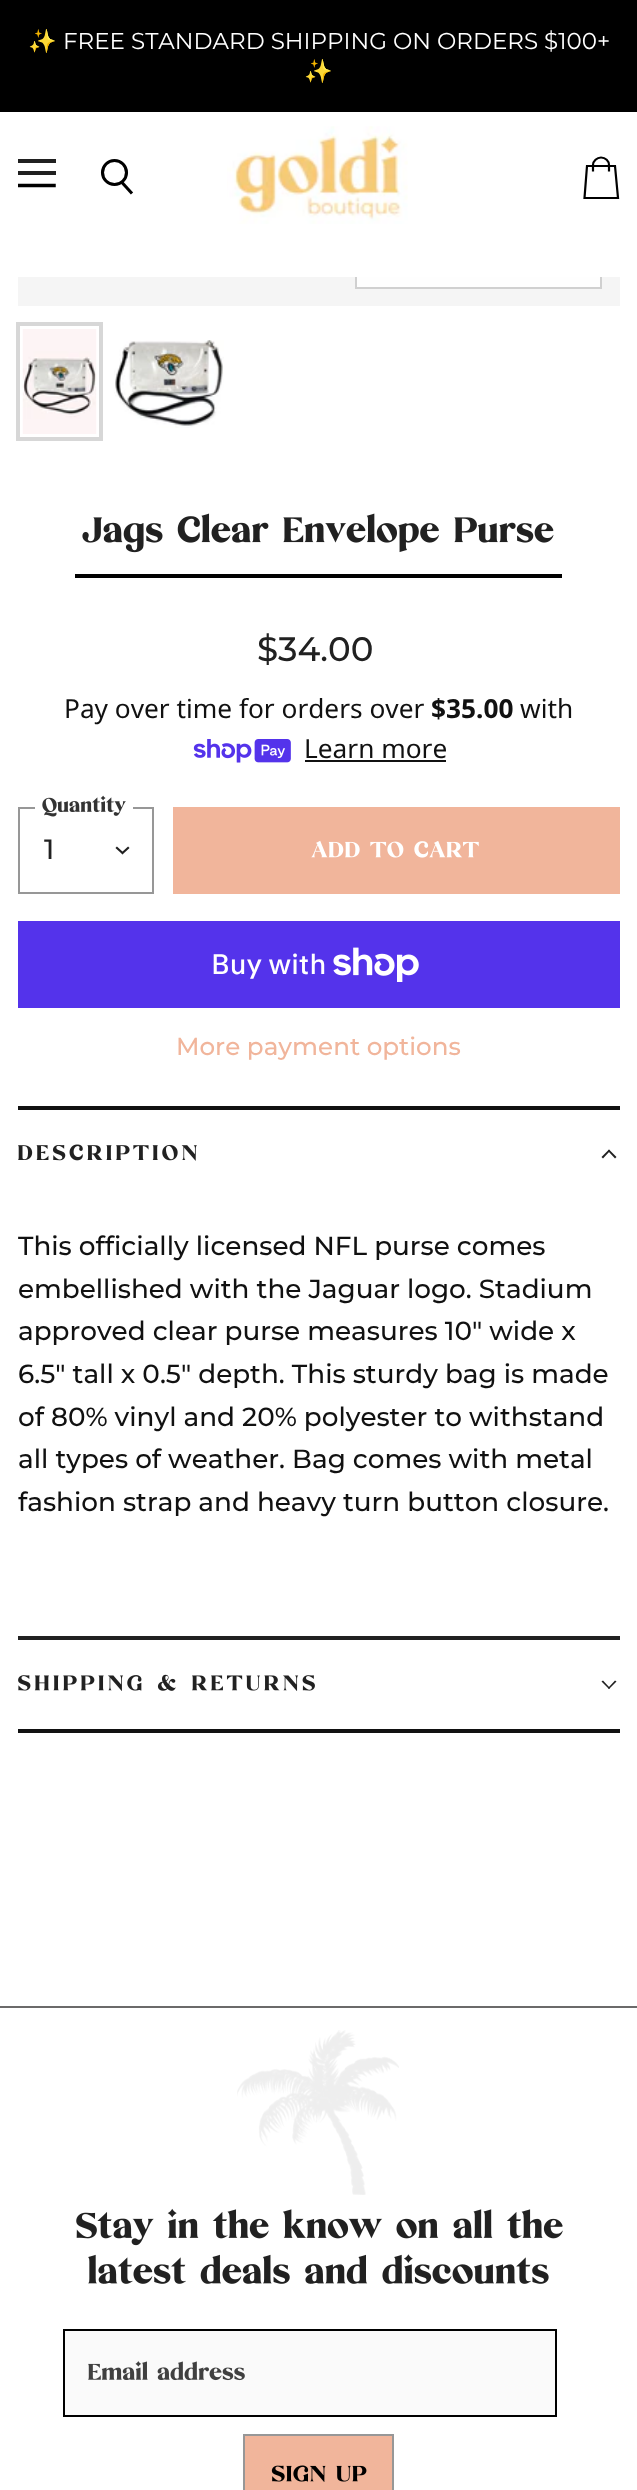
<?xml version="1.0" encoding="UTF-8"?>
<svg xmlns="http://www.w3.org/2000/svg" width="637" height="2490">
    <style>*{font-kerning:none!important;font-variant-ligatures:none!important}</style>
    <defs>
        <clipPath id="clip1"><rect x="18" y="158" width="38" height="31"/></clipPath>
        <clipPath id="clip2"><rect x="18" y="277" width="602" height="29"/></clipPath>
    </defs>
    <rect width="100%" height="100%" fill="#FFFFFF"/>
    <rect x="0" y="0" width="637" height="112" fill="#000000"/>
    <text x="28" y="49" font-family="Noto Color Emoji" font-size="23" fill="#FFFFFF">✨</text>
    <text x="63" y="49" font-family="Montserrat" font-size="23" fill="#FFFFFF">FREE STANDARD SHIPPING ON ORDERS $100+</text>
    <text x="304" y="79" font-family="Noto Color Emoji" font-size="23" fill="#FFFFFF">✨</text>
    <image x="227" y="126" width="181" height="98" href="img_01.png"/>
    <rect x="18" y="159" width="38" height="4" fill="#202020"/>
    <rect x="18" y="171" width="38" height="4" fill="#202020"/>
    <g clip-path="url(#clip1)">
        <path d="M 54 185.5 H 19" fill="none" stroke="#000000" stroke-width="3.5" stroke-linecap="square" stroke-linejoin="round"/>
    </g>
    <path d="M 132 193.5 L 122 182.5" fill="none" stroke="#000000" stroke-width="3.1"/>
    <circle cx="114.5" cy="172.5" r="12" fill="none" stroke="#000000" stroke-width="3.1"/>
    <path d="M 618 198 H 584.5 L 587 166 H 615 Z M 609 171.5 V 165 C 609 161 605.5 157.5 601 157.5 C 597 157.5 593 161 593 165 V 171.5" fill="none" stroke="#000000" stroke-width="2.2"/>
    <rect x="18" y="277" width="602" height="29" fill="#F5F5F5"/>
    <g clip-path="url(#clip2)">
        <rect x="356" y="239" width="245" height="49" fill="none" stroke="#D0D0D0" stroke-width="2"/>
    </g>
    <rect x="357" y="277" width="243" height="10" fill="#FEFEFE"/>
    <rect x="18" y="324" width="83" height="115" fill="none" stroke="#D7D7D7" stroke-width="4"/>
    <image x="22" y="329" width="75" height="105" href="img_02.png"/>
    <image x="114" y="340" width="110" height="88" href="img_03.png"/>
    <image x="82" y="513" width="472" height="40" href="img_04.png"/>
    <rect x="75" y="574" width="487" height="4" fill="#000000"/>
    <text x="257" y="661" font-family="MONTSERRAT" font-size="34" font-weight="500" fill="#212121">$34.00</text>
    <text x="64" y="718" font-family="Noto Sans" font-size="26.25" fill="#111111">Pay over time for orders over</text>
    <text x="431" y="718" font-family="Noto Sans" font-size="26.25" font-weight="700" fill="#111111">$35.00</text>
    <text x="520" y="718" font-family="Noto Sans" font-size="26.25" fill="#111111">with</text>
    <image x="193" y="739" width="98" height="24" href="img_05.png"/>
    <text x="304" y="758" font-family="Noto Sans" font-size="26.25" fill="#111111">Learn more</text>
    <rect x="305" y="760" width="141" height="2" fill="#111111"/>
    <rect x="19" y="808" width="134" height="85" fill="none" stroke="#979797" stroke-width="2"/>
    <rect x="35" y="807" width="98" height="2" fill="#FFFFFF"/>
    <image x="42" y="795" width="84" height="22" href="img_06.png"/>
    <text x="44" y="859" font-family="MONTSERRAT" font-size="28" font-weight="500" fill="#212121">1</text>
    <path d="M 122.5 853 L 128 848 M 122.5 853 L 117 848" fill="none" stroke="#212121" stroke-width="2.2" stroke-linecap="square"/>
    <rect x="173" y="807" width="447" height="87" fill="#F1B59B"/>
    <image x="311" y="840" width="168" height="18" href="img_07.png"/>
    <rect x="18" y="921" width="602" height="87" fill="#5433EB"/>
    <text x="211" y="974" font-family="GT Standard" font-size="28" font-weight="500" fill="#FFFFFF">Buy with</text>
    <image x="333" y="947" width="86" height="35" href="img_08.png"/>
    <text x="176" y="1055" font-family="MONTSERRAT" font-size="24.6" font-weight="500" fill="#F1B59B">More payment options</text>
    <rect x="18" y="1106" width="602" height="4" fill="#111111"/>
    <rect x="18" y="1729" width="602" height="4" fill="#111111"/>
    <image x="18" y="1144" width="179" height="17" href="img_09.png"/>
    <path d="M 603 1158.5 L 601.5 1157 L 609 1149.5 L 610 1151 Z" fill="#212121"/>
    <path d="M 615 1158.5 L 608 1151 L 609 1149.5 L 616.5 1157 Z" fill="#212121"/>
    <text font-family="MONTSERRAT" font-size="26.25" font-weight="500" fill="#111111">
        <tspan x="18" y="1255">This officially licensed NFL purse comes</tspan>
        <tspan x="18" y="1298">embellished with the Jaguar logo. Stadium</tspan>
        <tspan x="18" y="1340">approved clear purse measures 10" wide x</tspan>
        <tspan x="18" y="1383">6.5" tall x 0.5" depth. This sturdy bag is made</tspan>
        <tspan x="18" y="1426">of 80% vinyl and 20% polyester to withstand</tspan>
        <tspan x="18" y="1468">all types of weather. Bag comes with metal</tspan>
        <tspan x="18" y="1511">fashion strap and heavy turn button closure.</tspan>
    </text>
    <rect x="18" y="1636" width="602" height="4" fill="#212121"/>
    <image x="18" y="1674" width="297" height="17" href="img_10.png"/>
    <path d="M 615 1680.5 L 616.5 1681.5 L 609 1689 L 608 1688 Z" fill="#212121"/>
    <path d="M 603 1680.5 L 610 1688 L 609 1689 L 601.5 1681.5 Z" fill="#212121"/>
    <rect x="0" y="2006" width="637" height="2" fill="#6B6A6A"/>
    <image x="237" y="2030" width="162" height="165" href="img_11.png"/>
    <image x="76" y="2208" width="487" height="38" href="img_12.png"/>
    <image x="88" y="2254" width="461" height="30" href="img_13.png"/>
    <rect x="64" y="2330" width="492" height="86" fill="#FAFAFA" stroke="#000000" stroke-width="2"/>
    <image x="88" y="2361" width="157" height="20" href="img_14.png"/>
    <rect x="244" y="2435" width="149" height="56" fill="#F1B59B" stroke="#979797" stroke-width="2"/>
    <image x="271" y="2465" width="96" height="17" href="img_15.png"/>
</svg>
